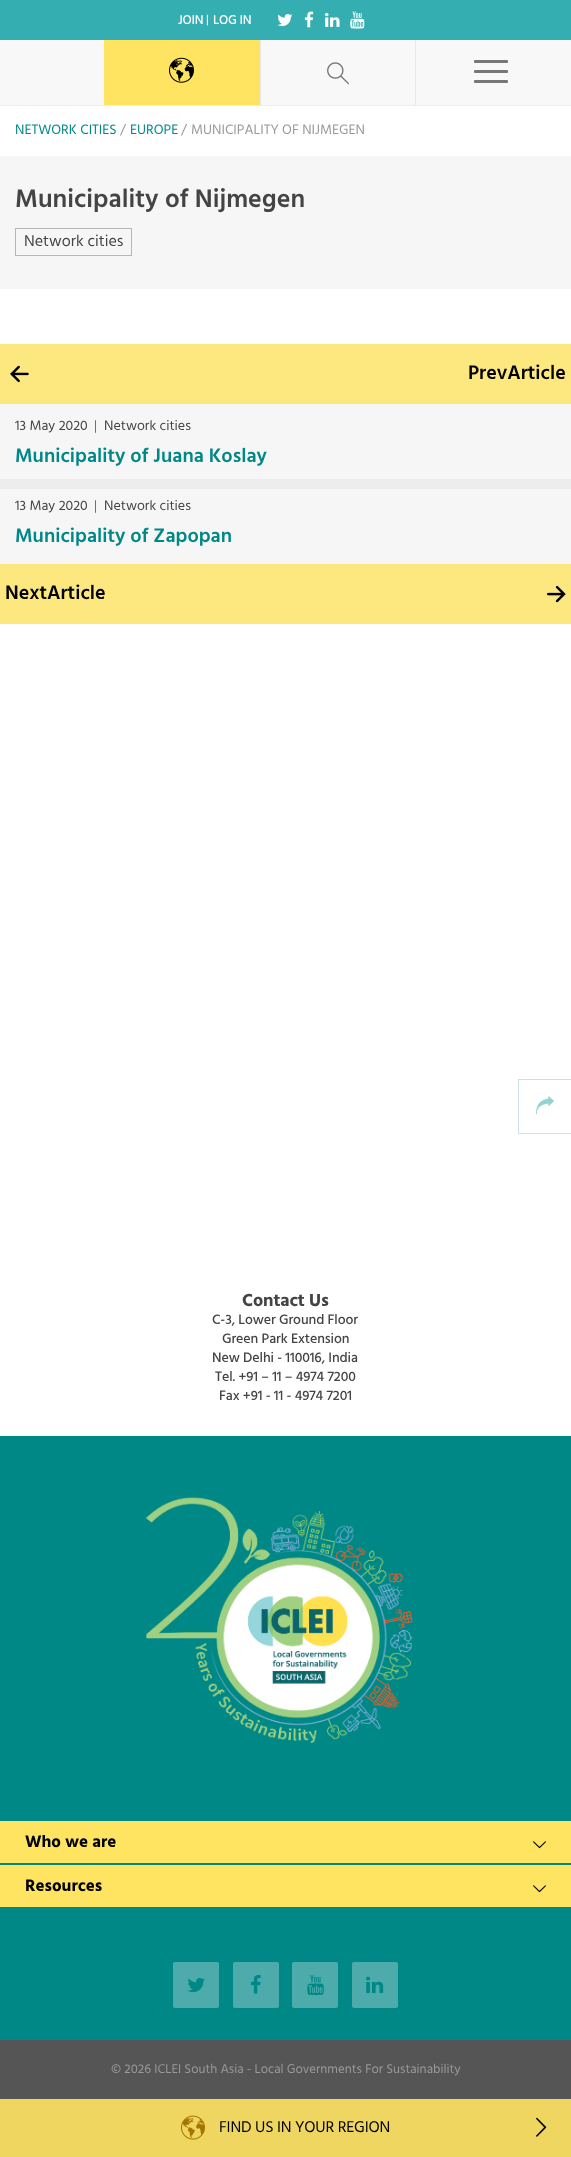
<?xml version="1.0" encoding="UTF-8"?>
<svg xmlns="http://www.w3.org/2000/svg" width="571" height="2157">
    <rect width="100%" height="100%" fill="#FFFFFF"/>
    <rect x="0" y="0" width="571" height="40" fill="#34AEB1"/>
    <text x="178" y="24" font-family="Hind" font-size="13" font-weight="500" letter-spacing="-0.25" fill="#FFFFFF">JOIN</text>
    <text x="206" y="23" font-family="Hind" font-size="12" font-weight="500" letter-spacing="-0.25" fill="#FFFFFF">|</text>
    <text x="213" y="24" font-family="Hind" font-size="13" font-weight="500" letter-spacing="-0.25" fill="#FFFFFF">LOG IN</text>
    <image x="277" y="14" width="16" height="13" href="img_01.png"/>
    <image x="304" y="11" width="10" height="17" href="img_02.png"/>
    <image x="325" y="13" width="15" height="14" href="img_03.png"/>
    <image x="350" y="11" width="15" height="18" href="img_04.png"/>
    <rect x="0" y="40" width="571" height="65" fill="#F8F8F8"/>
    <rect x="0" y="105" width="571" height="1" fill="#EDEDED"/>
    <rect x="104" y="40" width="156" height="65" fill="#FFE461"/>
    <image x="169" y="57" width="25" height="26" href="img_05.png"/>
    <rect x="260" y="40" width="1" height="65" fill="#E8E8E8"/>
    <image x="327" y="62" width="22" height="23" href="img_06.png"/>
    <rect x="415" y="40" width="1" height="65" fill="#E8E8E8"/>
    <rect x="474" y="60" width="34" height="3" rx="1" fill="#777777"/>
    <rect x="474" y="70" width="34" height="3" rx="1" fill="#777777"/>
    <rect x="474" y="80" width="34" height="3" rx="1" fill="#777777"/>
    <text x="15" y="134" font-family="Hind" font-size="14" fill="#008887">NETWORK CITIES</text>
    <text x="120" y="134" font-family="Hind" font-size="14" fill="#999999">/</text>
    <text x="130" y="134" font-family="Hind" font-size="14" fill="#008887">EUROPE</text>
    <text x="181" y="134" font-family="Hind" font-size="14" fill="#999999">/</text>
    <text x="191" y="134" font-family="Hind" font-size="14" fill="#999999">MUNICIPALITY OF NIJMEGEN</text>
    <rect x="0" y="156" width="571" height="133" fill="#F6F6F6"/>
    <text x="15" y="207" font-family="Hind" font-size="26" font-weight="600" fill="#444444">Municipality of Nijmegen</text>
    <rect x="15.5" y="228.5" width="116" height="27" fill="none" stroke="#B7B7B7"/>
    <text x="24" y="246" font-family="Hind" font-size="16" fill="#444444">Network cities</text>
    <rect x="0" y="344" width="571" height="60" fill="#FDE87F"/>
    <image x="10" y="365" width="19" height="18" href="img_07.png"/>
    <text x="468" y="379" font-family="Hind" font-size="20" font-weight="600" fill="#000000">PrevArticle</text>
    <rect x="0" y="404" width="571" height="75" fill="#F6F6F6"/>
    <text x="15" y="430" font-family="Hind" font-size="14" fill="#444444">13 May 2020</text>
    <text x="94" y="430" font-family="Hind" font-size="14" font-weight="300" fill="#444444">|</text>
    <text x="104" y="430" font-family="Hind" font-size="14" fill="#444444">Network cities</text>
    <text x="15" y="462" font-family="Hind" font-size="20" font-weight="600" fill="#008887">Municipality of Juana Koslay</text>
    <rect x="0" y="479" width="571" height="10" fill="#EDEDED"/>
    <rect x="0" y="489" width="571" height="75" fill="#F6F6F6"/>
    <text x="15" y="510" font-family="Hind" font-size="14" fill="#444444">13 May 2020</text>
    <text x="94" y="510" font-family="Hind" font-size="14" font-weight="300" fill="#444444">|</text>
    <text x="104" y="510" font-family="Hind" font-size="14" fill="#444444">Network cities</text>
    <text x="15" y="542" font-family="Hind" font-size="20" font-weight="600" fill="#008887">Municipality of Zapopan</text>
    <rect x="0" y="564" width="571" height="60" fill="#FDE87F"/>
    <text x="5" y="599" font-family="Hind" font-size="20" font-weight="600" fill="#000000">NextArticle</text>
    <image x="547" y="585" width="19" height="18" href="img_08.png"/>
    <rect x="518.5" y="1079.5" width="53" height="54" fill="none" stroke="#CAE2E3"/>
    <image x="536" y="1096" width="18" height="19" href="img_09.png"/>
    <rect x="0" y="1436" width="571" height="604" fill="#008887"/>
    <text x="242" y="1306" font-family="Hind" font-size="18" font-weight="700" letter-spacing="-0.1" fill="#444444">Contact Us</text>
    <text x="212" y="1324" font-family="Hind" font-size="14" font-weight="500" letter-spacing="-0.1" fill="#444444">C-3, Lower Ground Floor</text>
    <text x="222" y="1343" font-family="Hind" font-size="14" font-weight="500" letter-spacing="-0.1" fill="#444444">Green Park Extension</text>
    <text x="212" y="1362" font-family="Hind" font-size="14" font-weight="500" letter-spacing="-0.1" fill="#444444">New Delhi - 110016, India</text>
    <text x="215" y="1381" font-family="Hind" font-size="14" font-weight="500" letter-spacing="-0.1" fill="#444444">Tel. +91 – 11 – 4974 7200</text>
    <text x="219" y="1400" font-family="Hind" font-size="14" font-weight="500" letter-spacing="-0.1" fill="#444444">Fax +91 - 11 - 4974 7201</text>
    <image x="145" y="1497" width="268" height="246" href="img_10.png"/>
    <rect x="0" y="1821" width="571" height="42" fill="#FFE461"/>
    <text x="25" y="1847" font-family="Hind" font-size="17" font-weight="700" fill="#000000">Who we are</text>
    <image x="533" y="1841" width="13" height="8" href="img_11.png"/>
    <rect x="0" y="1865" width="571" height="42" fill="#FFE461"/>
    <text x="25" y="1891" font-family="Hind" font-size="17" font-weight="700" fill="#000000">Resources</text>
    <image x="533" y="1885" width="13" height="8" href="img_11.png"/>
    <rect x="173" y="1962" width="46" height="46" rx="2" fill="#4DACAB"/>
    <image x="187" y="1977" width="18" height="16" href="img_12.png"/>
    <rect x="233" y="1962" width="46" height="46" rx="2" fill="#4DACAB"/>
    <image x="251" y="1975" width="10" height="19" href="img_13.png"/>
    <rect x="292" y="1962" width="46" height="46" rx="2" fill="#4DACAB"/>
    <image x="307" y="1975" width="17" height="20" href="img_14.png"/>
    <rect x="352" y="1962" width="46" height="46" rx="2" fill="#4DACAB"/>
    <image x="366" y="1976" width="18" height="18" href="img_15.png"/>
    <rect x="0" y="2040" width="571" height="59" fill="#555555"/>
    <text x="111" y="2073" font-family="Hind" font-size="13" fill="#999999">© 2026 ICLEI South Asia - Local Governments For Sustainability</text>
    <rect x="0" y="2099" width="571" height="58" fill="#EED660"/>
    <image x="181" y="2115" width="24" height="25" href="img_16.png"/>
    <text x="219" y="2132" font-family="Hind" font-size="16" letter-spacing="-0.2" fill="#000000">FIND US IN YOUR REGION</text>
    <image x="536" y="2117" width="11" height="20" href="img_17.png"/>
</svg>
